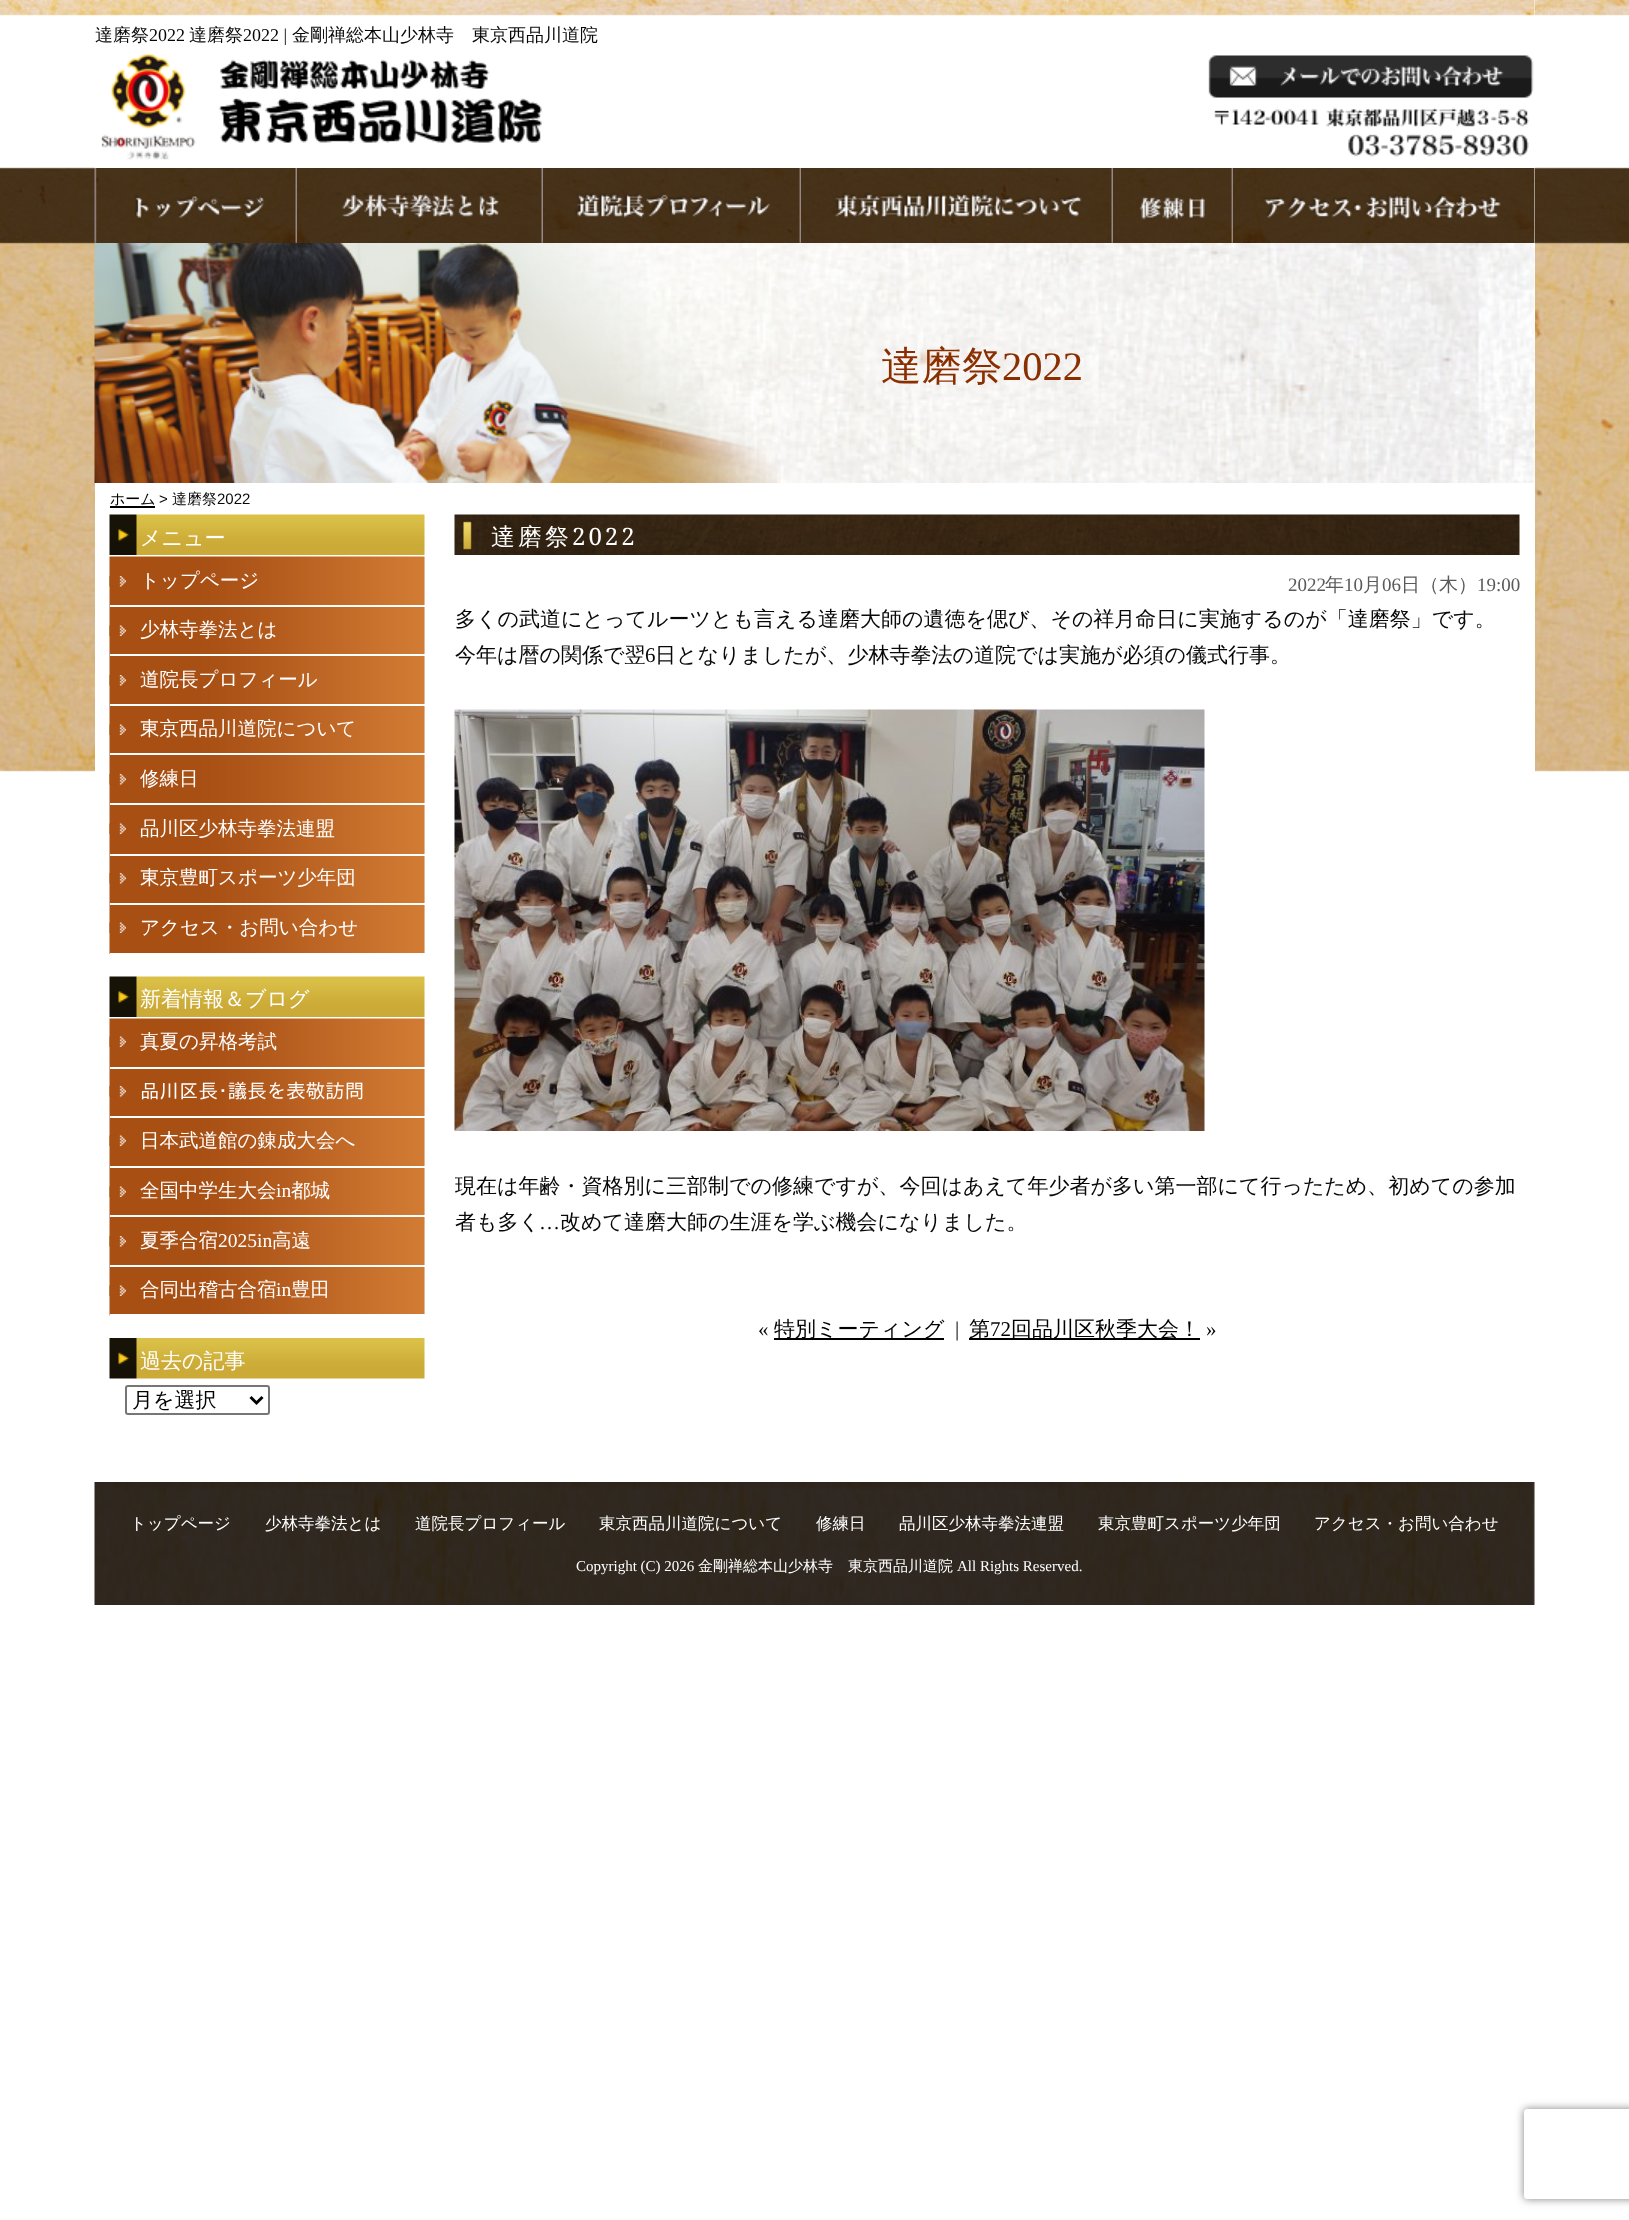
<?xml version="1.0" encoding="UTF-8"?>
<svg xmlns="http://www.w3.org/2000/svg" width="1629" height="2220">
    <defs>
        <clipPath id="clip1"><path d="M 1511 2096 H 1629 V 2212 H 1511 Z M 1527 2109 H 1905 C 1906.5 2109 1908 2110.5 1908 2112 V 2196 C 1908 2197.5 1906.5 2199 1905 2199 H 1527 C 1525.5 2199 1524 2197.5 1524 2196 V 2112 C 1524 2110.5 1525.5 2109 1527 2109 Z" clip-rule="evenodd"/></clipPath>
        <filter id="blur1" x="-50%" y="-200%" width="200%" height="500%"><feGaussianBlur stdDeviation="4"/></filter>
    </defs>
    <rect width="100%" height="100%" fill="#FFFFFF"/>
    <image x="0" y="0" width="1629" height="772" href="img_01.png"/>
    <rect x="95" y="0" width="1440" height="772" fill="#FFFFFF"/>
    <image x="94" y="0" width="1441" height="16" href="img_02.png"/>
    <text x="95" y="41" font-family="WenQuanYi Zen Hei" font-size="18" font-weight="500" fill="#080808">達磨祭</text>
    <text x="149" y="41" font-family="Liberation Serif" font-size="18" fill="#080808">2022</text>
    <text x="189" y="41" font-family="WenQuanYi Zen Hei" font-size="18" font-weight="500" fill="#080808">達磨祭</text>
    <text x="243" y="41" font-family="Liberation Serif" font-size="18" fill="#080808">2022 |</text>
    <text x="292" y="41" font-family="WenQuanYi Zen Hei" font-size="18" font-weight="500" fill="#080808">金剛禅総本山少林寺　東京西品川道院</text>
    <image x="94" y="53" width="448" height="115" href="img_03.png"/>
    <image x="1208" y="55" width="326" height="102" href="img_04.png"/>
    <image x="94" y="168" width="203" height="75" href="img_05.png"/>
    <image x="297" y="168" width="246" height="75" href="img_06.png"/>
    <image x="543" y="168" width="258" height="75" href="img_07.png"/>
    <image x="801" y="168" width="312" height="75" href="img_08.png"/>
    <image x="1113" y="168" width="120" height="75" href="img_09.png"/>
    <image x="1233" y="168" width="302" height="75" href="img_10.png"/>
    <image x="94" y="243" width="1441" height="240" href="img_11.png"/>
    <text x="881" y="380" font-family="WenQuanYi Zen Hei" font-size="40.5" font-weight="500" fill="#8B2F01">達磨祭</text>
    <text x="1002" y="380" font-family="Liberation Serif" font-size="40.5" fill="#8B2F01">2022</text>
    <text x="110" y="504" font-family="WenQuanYi Zen Hei" font-size="15" font-weight="500" fill="#000000">ホーム</text>
    <rect x="110" y="506" width="45" height="2" fill="#000000"/>
    <text x="159" y="504" font-family="Liberation Sans" font-size="15" fill="#080808">&gt;</text>
    <text x="172" y="504" font-family="WenQuanYi Zen Hei" font-size="15" font-weight="500" fill="#080808">達磨祭</text>
    <text x="217" y="504" font-family="Liberation Sans" font-size="15" fill="#080808">2022</text>
    <image x="109" y="514" width="316" height="41" href="img_12.png"/>
    <text x="140" y="545" font-family="WenQuanYi Zen Hei" font-size="21" font-weight="500" fill="#FFFFFF">メニュー</text>
    <rect x="424" y="557" width="1" height="396" fill="#F3F3F3"/>
    <image x="109" y="556" width="316" height="398" href="img_13.png"/>
    <image x="109" y="576" width="17" height="11" href="img_14.png"/>
    <rect x="110" y="605" width="315" height="2" fill="#FFFFFF"/>
    <text x="140" y="587" font-family="WenQuanYi Zen Hei" font-size="19.5" font-weight="500" fill="#FFFFFF">トップページ</text>
    <image x="109" y="625" width="17" height="11" href="img_15.png"/>
    <rect x="110" y="654" width="315" height="2" fill="#FFFFFF"/>
    <text x="140" y="636" font-family="WenQuanYi Zen Hei" font-size="19.5" font-weight="500" fill="#FFFFFF">少林寺拳法とは</text>
    <image x="109" y="675" width="17" height="11" href="img_14.png"/>
    <rect x="110" y="704" width="315" height="2" fill="#FFFFFF"/>
    <text x="140" y="686" font-family="WenQuanYi Zen Hei" font-size="19.5" font-weight="500" fill="#FFFFFF">道院長プロフィール</text>
    <image x="109" y="724" width="17" height="11" href="img_15.png"/>
    <rect x="110" y="753" width="315" height="2" fill="#FFFFFF"/>
    <text x="140" y="735" font-family="WenQuanYi Zen Hei" font-size="19.5" font-weight="500" fill="#FFFFFF">東京西品川道院について</text>
    <image x="109" y="774" width="17" height="11" href="img_14.png"/>
    <rect x="110" y="803" width="315" height="2" fill="#FFFFFF"/>
    <text x="140" y="785" font-family="WenQuanYi Zen Hei" font-size="19.5" font-weight="500" fill="#FFFFFF">修練日</text>
    <image x="109" y="823" width="17" height="11" href="img_15.png"/>
    <rect x="110" y="854" width="315" height="2" fill="#FFFFFF"/>
    <text x="140" y="835" font-family="WenQuanYi Zen Hei" font-size="19.5" font-weight="500" fill="#FFFFFF">品川区少林寺拳法連盟</text>
    <image x="109" y="873" width="17" height="11" href="img_14.png"/>
    <rect x="110" y="903" width="315" height="2" fill="#FFFFFF"/>
    <text x="140" y="884" font-family="WenQuanYi Zen Hei" font-size="19.5" font-weight="500" fill="#FFFFFF">東京豊町スポーツ少年団</text>
    <image x="109" y="922" width="17" height="11" href="img_15.png"/>
    <rect x="110" y="953" width="315" height="1" fill="#FFFFFF"/>
    <text x="140" y="934" font-family="WenQuanYi Zen Hei" font-size="19.5" font-weight="500" fill="#FFFFFF">アクセス・お問い合わせ</text>
    <image x="109" y="976" width="316" height="41" href="img_12.png"/>
    <text x="140" y="1006" font-family="WenQuanYi Zen Hei" font-size="21" font-weight="500" fill="#FFFFFF">新着情報＆ブログ</text>
    <rect x="424" y="1019" width="1" height="295" fill="#F3F3F3"/>
    <image x="109" y="1018" width="316" height="298" href="img_16.png"/>
    <image x="109" y="1036" width="17" height="11" href="img_15.png"/>
    <rect x="110" y="1067" width="315" height="2" fill="#FFFFFF"/>
    <text x="140" y="1048" font-family="WenQuanYi Zen Hei" font-size="19.5" font-weight="500" fill="#FFFFFF">真夏の昇格考試</text>
    <image x="109" y="1086" width="17" height="11" href="img_14.png"/>
    <rect x="110" y="1116" width="315" height="2" fill="#FFFFFF"/>
    <text x="140" y="1098" font-family="IPAGothic" font-size="19.5" fill="#FFFFFF">品川区長･議長を表敬訪問</text>
    <image x="109" y="1135" width="17" height="11" href="img_15.png"/>
    <rect x="110" y="1166" width="315" height="2" fill="#FFFFFF"/>
    <text x="140" y="1147" font-family="WenQuanYi Zen Hei" font-size="19.5" font-weight="500" fill="#FFFFFF">日本武道館の錬成大会へ</text>
    <image x="109" y="1186" width="17" height="11" href="img_15.png"/>
    <rect x="110" y="1215" width="315" height="2" fill="#FFFFFF"/>
    <text x="140" y="1197" font-family="WenQuanYi Zen Hei" font-size="19.5" font-weight="500" fill="#FFFFFF">全国中学生大会</text>
    <text x="276" y="1197" font-family="Liberation Serif" font-size="19.5" fill="#FFFFFF">in</text>
    <text x="291" y="1197" font-family="WenQuanYi Zen Hei" font-size="19.5" font-weight="500" fill="#FFFFFF">都城</text>
    <image x="109" y="1236" width="17" height="11" href="img_14.png"/>
    <rect x="110" y="1265" width="315" height="2" fill="#FFFFFF"/>
    <text x="140" y="1247" font-family="WenQuanYi Zen Hei" font-size="19.5" font-weight="500" fill="#FFFFFF">夏季合宿</text>
    <text x="218" y="1247" font-family="Liberation Serif" font-size="19.5" fill="#FFFFFF">2025in</text>
    <text x="272" y="1247" font-family="WenQuanYi Zen Hei" font-size="19.5" font-weight="500" fill="#FFFFFF">高遠</text>
    <image x="109" y="1285" width="17" height="11" href="img_15.png"/>
    <rect x="110" y="1314" width="315" height="2" fill="#FFFFFF"/>
    <text x="140" y="1296" font-family="WenQuanYi Zen Hei" font-size="19.5" font-weight="500" fill="#FFFFFF">合同出稽古合宿</text>
    <text x="276" y="1296" font-family="Liberation Serif" font-size="19.5" fill="#FFFFFF">in</text>
    <text x="291" y="1296" font-family="WenQuanYi Zen Hei" font-size="19.5" font-weight="500" fill="#FFFFFF">豊田</text>
    <image x="109" y="1338" width="316" height="41" href="img_17.png"/>
    <text x="140" y="1368" font-family="WenQuanYi Zen Hei" font-size="21" font-weight="500" fill="#FFFFFF">過去の記事</text>
    <rect x="126" y="1386" width="143" height="28" rx="2" fill="none" stroke="#767676" stroke-width="2"/>
    <path d="M 250.5 1397 L 256.5 1403 L 262.5 1397" fill="none" stroke="#000000" stroke-width="3"/>
    <text x="132" y="1407" font-family="WenQuanYi Zen Hei" font-size="21" font-weight="500" fill="#000000">月を選択</text>
    <image x="454" y="514" width="1066" height="41" href="img_18.png"/>
    <text x="491" y="545" font-family="WenQuanYi Zen Hei" font-size="24" font-weight="500" letter-spacing="3" fill="#FFFFFF">達磨祭</text>
    <text x="572" y="545" font-family="Noto Serif" font-size="24" letter-spacing="3" fill="#FFFFFF">2022</text>
    <text x="1288" y="591" font-family="Liberation Serif" font-size="19" fill="#5A5A5A">2022</text>
    <text x="1325" y="591" font-family="WenQuanYi Zen Hei" font-size="19" font-weight="500" fill="#5A5A5A">年</text>
    <text x="1344" y="591" font-family="Liberation Serif" font-size="19" fill="#5A5A5A">10</text>
    <text x="1363" y="591" font-family="WenQuanYi Zen Hei" font-size="19" font-weight="500" fill="#5A5A5A">月</text>
    <text x="1382" y="591" font-family="Liberation Serif" font-size="19" fill="#5A5A5A">06</text>
    <text x="1401" y="591" font-family="WenQuanYi Zen Hei" font-size="19" font-weight="500" fill="#5A5A5A">日（木）</text>
    <text x="1477" y="591" font-family="Liberation Serif" font-size="19" fill="#5A5A5A">19:00</text>
    <text font-family="WenQuanYi Zen Hei" font-size="21" font-weight="500" fill="#080808">
        <tspan x="455" y="626">多くの武道にとってルーツとも言える達磨大師の遺徳を偲び、その祥月命日に実施するのが「達磨祭」です。</tspan>
        <tspan x="455" y="662">今年は暦の関係で翌</tspan>
    </text>
    <text x="645" y="662" font-family="Liberation Serif" font-size="21" fill="#080808">6</text>
    <text x="655" y="662" font-family="WenQuanYi Zen Hei" font-size="21" font-weight="500" fill="#080808">日となりましたが、少林寺拳法の道院では実施が必須の儀式行事。</text>
    <image x="454" y="709" width="751" height="422" href="img_19.png"/>
    <text font-family="WenQuanYi Zen Hei" font-size="21" font-weight="500" fill="#080808">
        <tspan x="455" y="1193">現在は年齢・資格別に三部制での修練ですが、今回はあえて年少者が多い第一部にて行ったため、初めての参加</tspan>
        <tspan x="455" y="1229">者も多く</tspan>
    </text>
    <text x="539" y="1229" font-family="Liberation Serif" font-size="21" fill="#080808">…</text>
    <text x="560" y="1229" font-family="WenQuanYi Zen Hei" font-size="21" font-weight="500" fill="#080808">改めて達磨大師の生涯を学ぶ機会になりました。</text>
    <text x="758" y="1336" font-family="Liberation Serif" font-size="21" fill="#080808">«</text>
    <rect x="774" y="1338" width="170" height="2" fill="#000000"/>
    <text x="774" y="1336" font-family="WenQuanYi Zen Hei" font-size="21" font-weight="500" fill="#000000">特別ミーティング</text>
    <text x="955" y="1336" font-family="Liberation Serif" font-size="21" fill="#080808">|</text>
    <rect x="969" y="1338" width="231" height="2" fill="#000000"/>
    <text x="969" y="1336" font-family="WenQuanYi Zen Hei" font-size="21" font-weight="500" fill="#000000">第</text>
    <text x="990" y="1336" font-family="Liberation Serif" font-size="21" fill="#000000">72</text>
    <text x="1011" y="1336" font-family="WenQuanYi Zen Hei" font-size="21" font-weight="500" fill="#000000">回品川区秋季大会！</text>
    <text x="1206" y="1336" font-family="Liberation Serif" font-size="21" fill="#080808">»</text>
    <rect x="1534" y="1482" width="1" height="123" fill="#F5F3F3"/>
    <image x="94" y="1482" width="1441" height="123" href="img_20.png"/>
    <text x="130" y="1529" font-family="WenQuanYi Zen Hei" font-size="16.5" font-weight="500" fill="#FFFFFF">トップページ</text>
    <text x="265" y="1529" font-family="WenQuanYi Zen Hei" font-size="16.5" font-weight="500" fill="#FFFFFF">少林寺拳法とは</text>
    <text x="415" y="1529" font-family="WenQuanYi Zen Hei" font-size="16.5" font-weight="500" fill="#FFFFFF">道院長プロフィール</text>
    <text x="599" y="1529" font-family="WenQuanYi Zen Hei" font-size="16.5" font-weight="500" fill="#FFFFFF">東京西品川道院について</text>
    <text x="816" y="1529" font-family="WenQuanYi Zen Hei" font-size="16.5" font-weight="500" fill="#FFFFFF">修練日</text>
    <text x="899" y="1529" font-family="WenQuanYi Zen Hei" font-size="16.5" font-weight="500" fill="#FFFFFF">品川区少林寺拳法連盟</text>
    <text x="1098" y="1529" font-family="WenQuanYi Zen Hei" font-size="16.5" font-weight="500" fill="#FFFFFF">東京豊町スポーツ少年団</text>
    <text x="1314" y="1529" font-family="WenQuanYi Zen Hei" font-size="16.5" font-weight="500" fill="#FFFFFF">アクセス・お問い合わせ</text>
    <text x="576" y="1571" font-family="Liberation Serif" font-size="15" fill="#FFFFFF">Copyright (C) 2026</text>
    <text x="698" y="1571" font-family="WenQuanYi Zen Hei" font-size="15" font-weight="500" fill="#FFFFFF">金剛禅総本山少林寺　東京西品川道院</text>
    <text x="957" y="1571" font-family="Liberation Serif" font-size="15" fill="#FFFFFF">All Rights Reserved.</text>
    <g clip-path="url(#clip1)">
        <rect x="1524" y="2109" width="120" height="90" rx="3" fill="#808080" filter="url(#blur1)"/>
    </g>
</svg>
